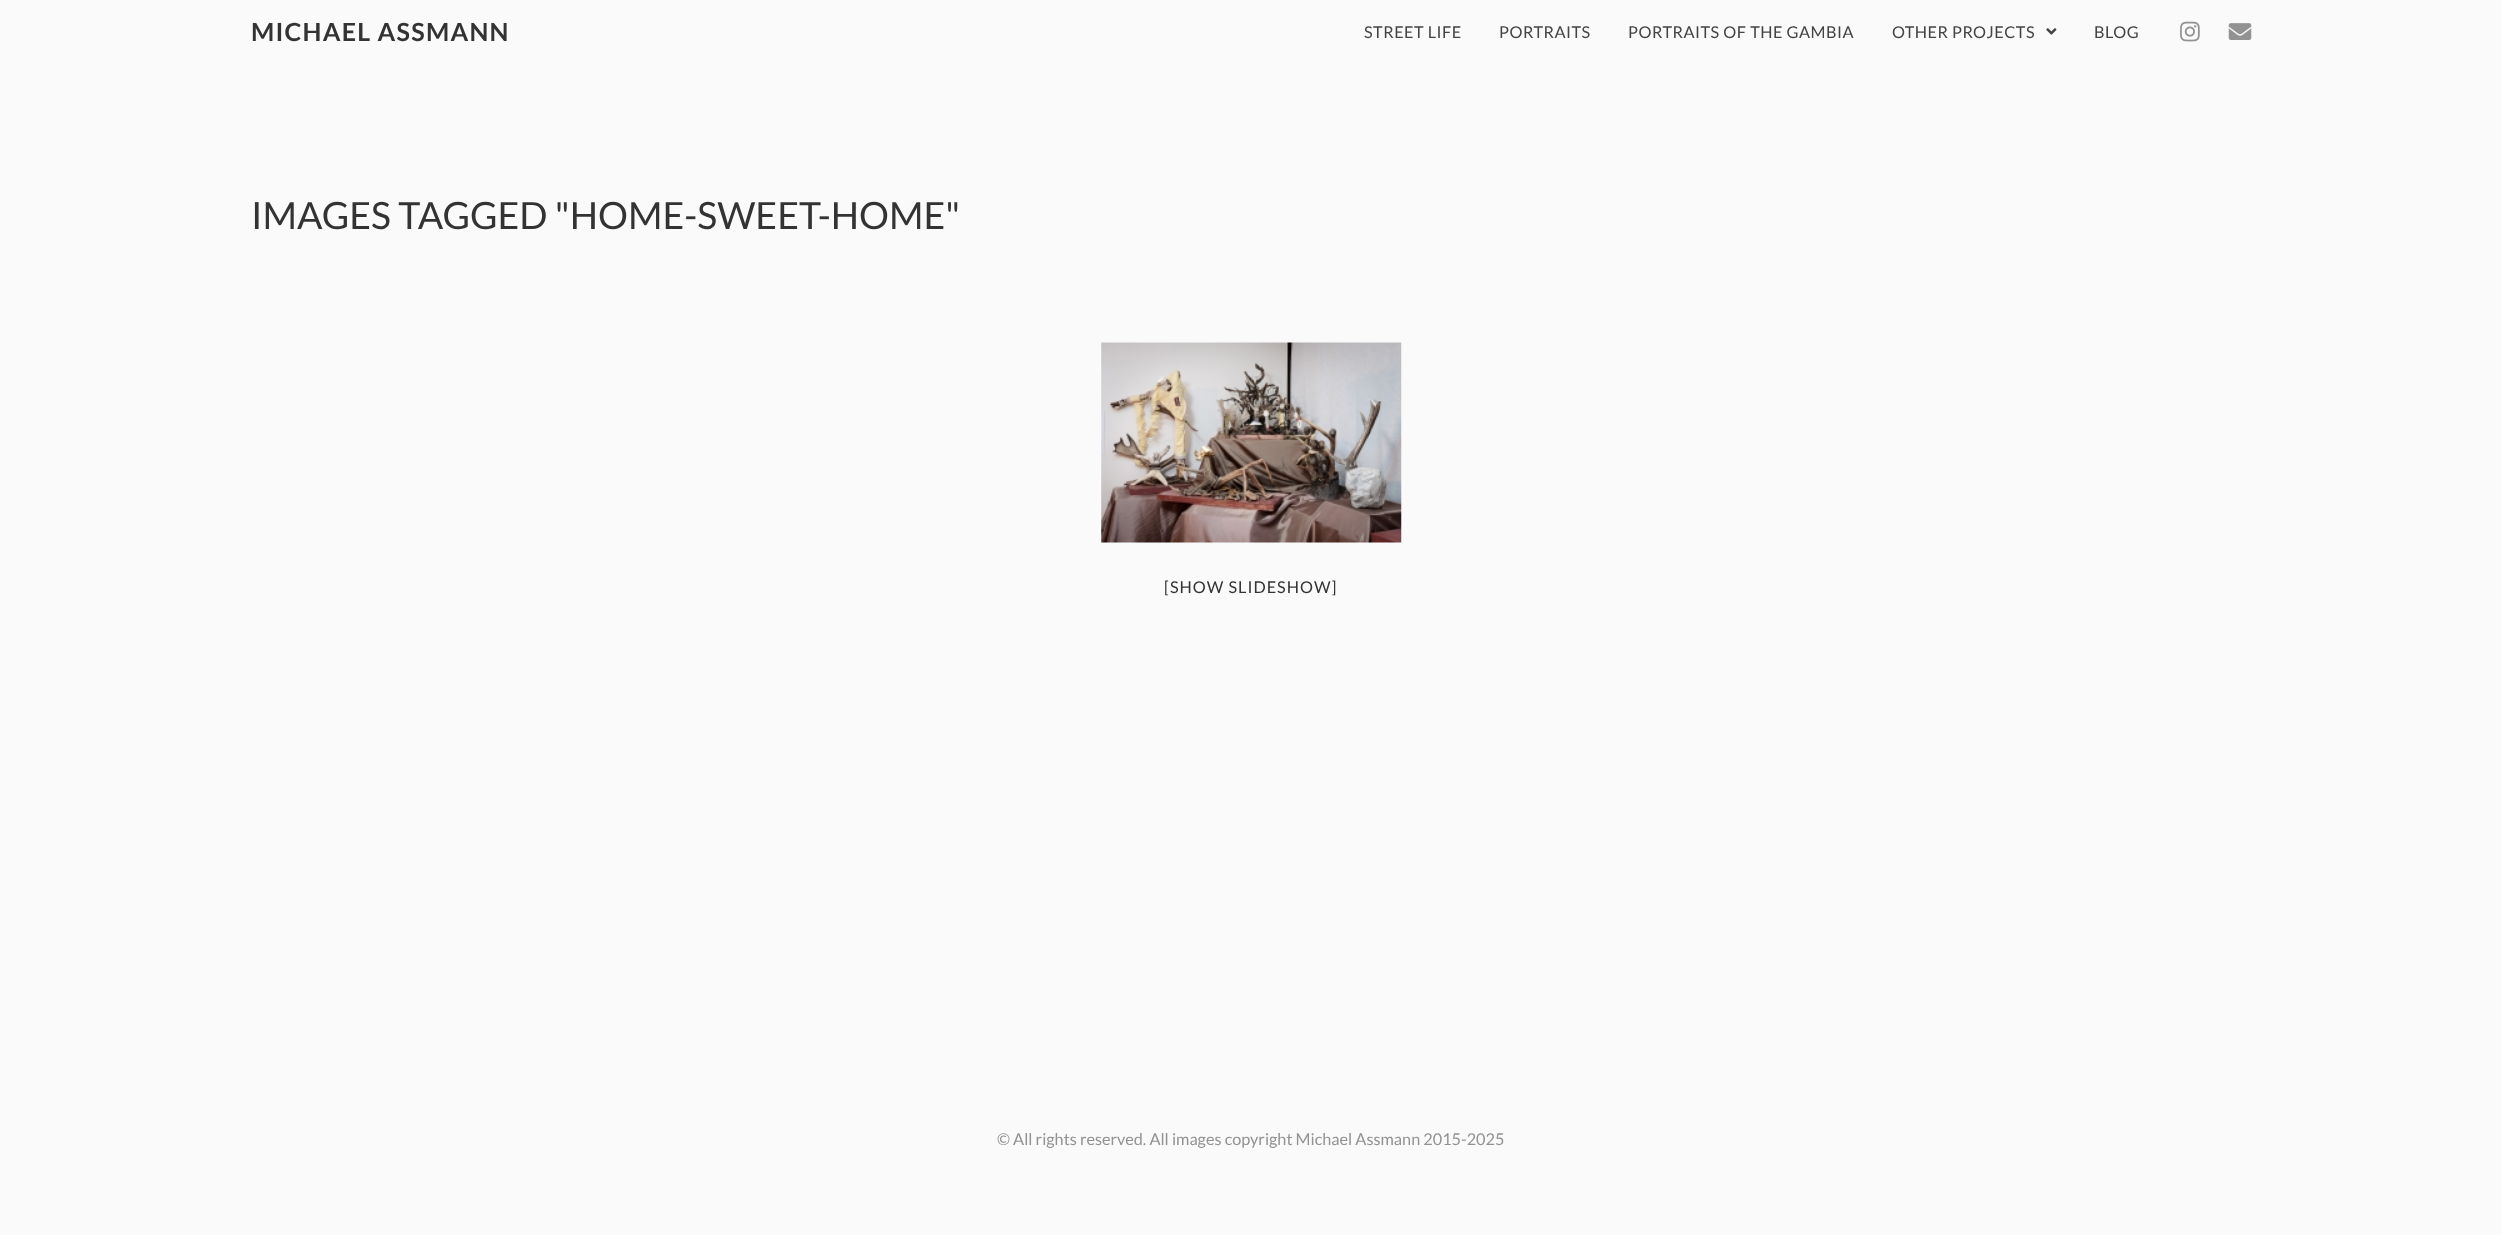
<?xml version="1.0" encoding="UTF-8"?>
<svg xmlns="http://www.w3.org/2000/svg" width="2501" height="1235">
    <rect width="100%" height="100%" fill="#FAFAFA"/>
    <text x="251" y="41" font-family="Lato" font-size="25" font-weight="700" letter-spacing="1.25" fill="#333333">MICHAEL ASSMANN</text>
    <text x="1364" y="38" font-family="Lato" font-size="16.25" letter-spacing="0.5" fill="#444444">STREET LIFE</text>
    <text x="1499" y="38" font-family="Lato" font-size="16.25" letter-spacing="0.5" fill="#444444">PORTRAITS</text>
    <text x="1628" y="38" font-family="Lato" font-size="16.25" letter-spacing="0.5" fill="#444444">PORTRAITS OF THE GAMBIA</text>
    <text x="1892" y="38" font-family="Lato" font-size="16.25" letter-spacing="0.5" fill="#444444">OTHER PROJECTS</text>
    <image x="2046" y="28" width="11" height="7" href="img_01.png"/>
    <text x="2094" y="38" font-family="Lato" font-size="16.25" letter-spacing="0.5" fill="#444444">BLOG</text>
    <image x="2180" y="21" width="20" height="21" href="img_02.png"/>
    <image x="2228" y="23" width="24" height="17" href="img_03.png"/>
    <text x="251" y="229" font-family="Lato" font-size="37.5" fill="#333333">IMAGES TAGGED "HOME-SWEET-HOME"</text>
    <image x="1101" y="342" width="301" height="201" href="img_04.png"/>
    <text x="1164" y="593" font-family="Lato" font-size="16.25" letter-spacing="1" fill="#333333">[SHOW SLIDESHOW]</text>
    <text x="997" y="1145" font-family="Lato" font-size="16.25" fill="#929292">© All rights reserved. All images copyright Michael Assmann 2015-2025</text>
</svg>
